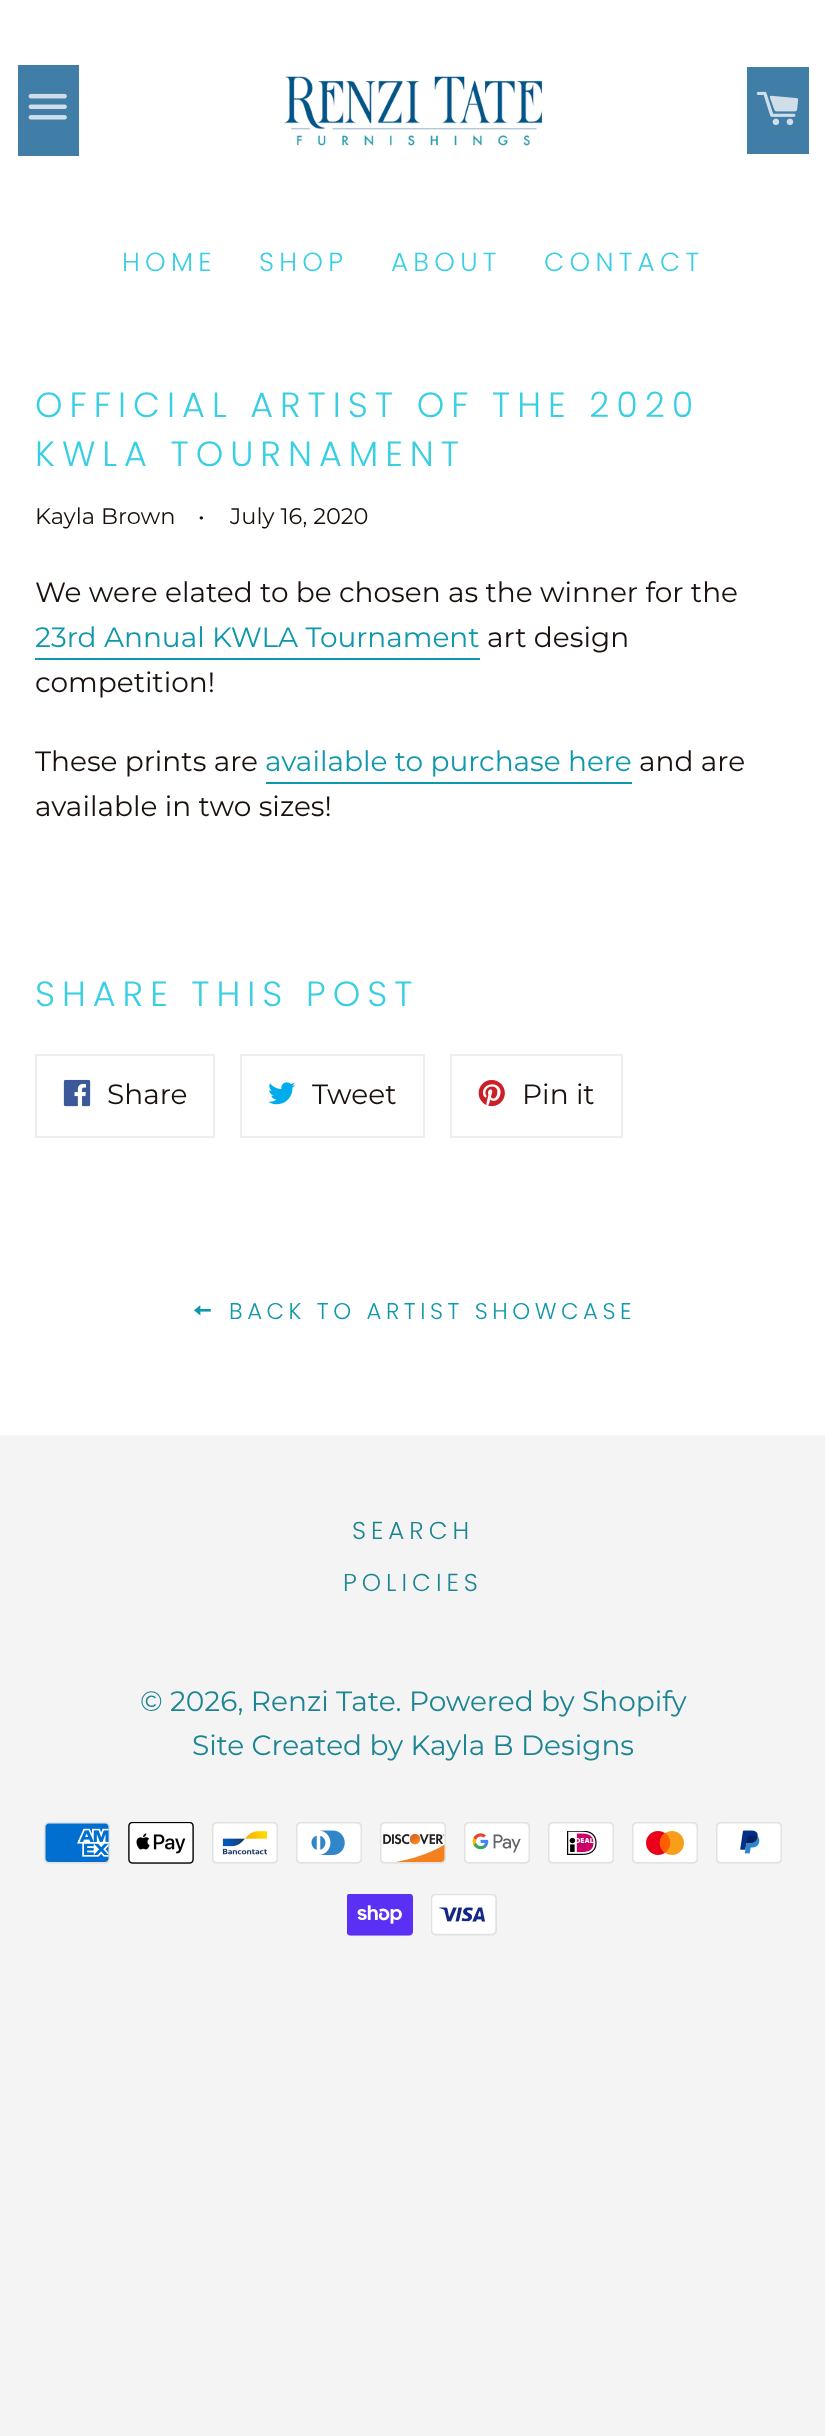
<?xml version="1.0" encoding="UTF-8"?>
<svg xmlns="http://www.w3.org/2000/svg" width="825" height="2436">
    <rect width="100%" height="100%" fill="#F4F4F4"/>
    <rect x="0" y="0" width="825" height="1435" fill="#FFFFFF"/>
    <rect x="18" y="65" width="61" height="91" fill="#407EA8"/>
    <image x="28" y="93" width="39" height="27" href="img_01.png"/>
    <image x="284" y="76" width="259" height="70" href="img_02.png"/>
    <rect x="747" y="67" width="62" height="87" fill="#407EA8"/>
    <image x="756" y="91" width="43" height="35" href="img_03.png"/>
    <text x="122" y="271" font-family="Poppins" font-size="26.25" font-weight="300" letter-spacing="5.25" fill="#39CFE3">HOME</text>
    <text x="259" y="271" font-family="Poppins" font-size="26.25" font-weight="300" letter-spacing="5.25" fill="#39CFE3">SHOP</text>
    <text x="391" y="271" font-family="Poppins" font-size="26.25" font-weight="300" letter-spacing="5.25" fill="#39CFE3">ABOUT</text>
    <text x="544" y="271" font-family="Poppins" font-size="26.25" font-weight="300" letter-spacing="5.25" fill="#39CFE3">CONTACT</text>
    <text font-family="Poppins" font-size="35" font-weight="300" letter-spacing="7" fill="#39CFE3">
        <tspan x="35" y="417">OFFICIAL ARTIST OF THE 2020</tspan>
        <tspan x="35" y="466">KWLA TOURNAMENT</tspan>
    </text>
    <text x="35" y="524" font-family="Montserrat" font-size="22.5" fill="#1B100E">Kayla Brown</text>
    <text x="198" y="524" font-family="Montserrat" font-size="22.5" fill="#1B100E">•</text>
    <text x="230" y="524" font-family="Montserrat" font-size="22.5" fill="#1B100E">July 16, 2020</text>
    <text x="35" y="602" font-family="Montserrat" font-size="28" fill="#1B100E">We were elated to be chosen as the winner for the</text>
    <text x="35" y="647" font-family="Montserrat" font-size="28" fill="#0F98AB">23rd Annual KWLA Tournament</text>
    <rect x="35" y="658" width="445" height="2" fill="#0F98AB"/>
    <text x="487" y="647" font-family="Montserrat" font-size="28" fill="#1B100E">art design</text>
    <text x="35" y="692" font-family="Montserrat" font-size="28" fill="#1B100E">competition!</text>
    <text x="35" y="771" font-family="Montserrat" font-size="28" fill="#1B100E">These prints are</text>
    <text x="265" y="771" font-family="Montserrat" font-size="28" fill="#0F98AB">available to purchase here</text>
    <rect x="266" y="782" width="366" height="2" fill="#0F98AB"/>
    <text x="639" y="771" font-family="Montserrat" font-size="28" fill="#1B100E">and are</text>
    <text x="35" y="816" font-family="Montserrat" font-size="28" fill="#1B100E">available in two sizes!</text>
    <text x="35" y="1006" font-family="Poppins" font-size="35" font-weight="300" letter-spacing="7" fill="#39CFE3">SHARE THIS POST</text>
    <rect x="36" y="1055" width="178" height="82" fill="none" stroke="#ECEFF1" stroke-width="2"/>
    <image x="63" y="1079" width="28" height="28" href="img_04.png"/>
    <text x="107" y="1104" font-family="Montserrat" font-size="28" fill="#1B100E">Share</text>
    <rect x="241" y="1055" width="183" height="82" fill="none" stroke="#ECEFF1" stroke-width="2"/>
    <image x="268" y="1082" width="27" height="23" href="img_05.png"/>
    <text x="312" y="1104" font-family="Montserrat" font-size="28" fill="#1B100E">Tweet</text>
    <rect x="451" y="1055" width="171" height="82" fill="none" stroke="#ECEFF1" stroke-width="2"/>
    <image x="478" y="1079" width="27" height="28" href="img_06.png"/>
    <text x="522" y="1104" font-family="Montserrat" font-size="28" fill="#1B100E">Pin it</text>
    <image x="194" y="1305" width="17" height="11" href="img_07.png"/>
    <text x="229" y="1319" font-family="Poppins" font-size="22.75" font-weight="300" letter-spacing="4.55" fill="#0F98AB">BACK TO ARTIST SHOWCASE</text>
    <text x="352" y="1539" font-family="Poppins" font-size="24.5" font-weight="300" letter-spacing="5" fill="#1D8492">SEARCH</text>
    <text x="343" y="1591" font-family="Poppins" font-size="24.5" font-weight="300" letter-spacing="5" fill="#1D8492">POLICIES</text>
    <text x="140" y="1711" font-family="Montserrat" font-size="28" fill="#1D8492">© 2026, Renzi Tate. Powered by Shopify</text>
    <text x="192" y="1755" font-family="Montserrat" font-size="28" fill="#1D8492">Site Created by Kayla B Designs</text>
    <image x="44" y="1822" width="66" height="42" href="img_08.png"/>
    <image x="128" y="1822" width="66" height="42" href="img_09.png"/>
    <image x="212" y="1822" width="66" height="42" href="img_10.png"/>
    <image x="296" y="1822" width="66" height="42" href="img_11.png"/>
    <image x="380" y="1822" width="66" height="42" href="img_12.png"/>
    <image x="464" y="1822" width="66" height="42" href="img_13.png"/>
    <image x="548" y="1822" width="66" height="42" href="img_14.png"/>
    <image x="632" y="1822" width="66" height="42" href="img_15.png"/>
    <image x="716" y="1822" width="66" height="42" href="img_16.png"/>
    <image x="347" y="1894" width="66" height="42" href="img_17.png"/>
    <image x="431" y="1894" width="66" height="42" href="img_18.png"/>
</svg>
